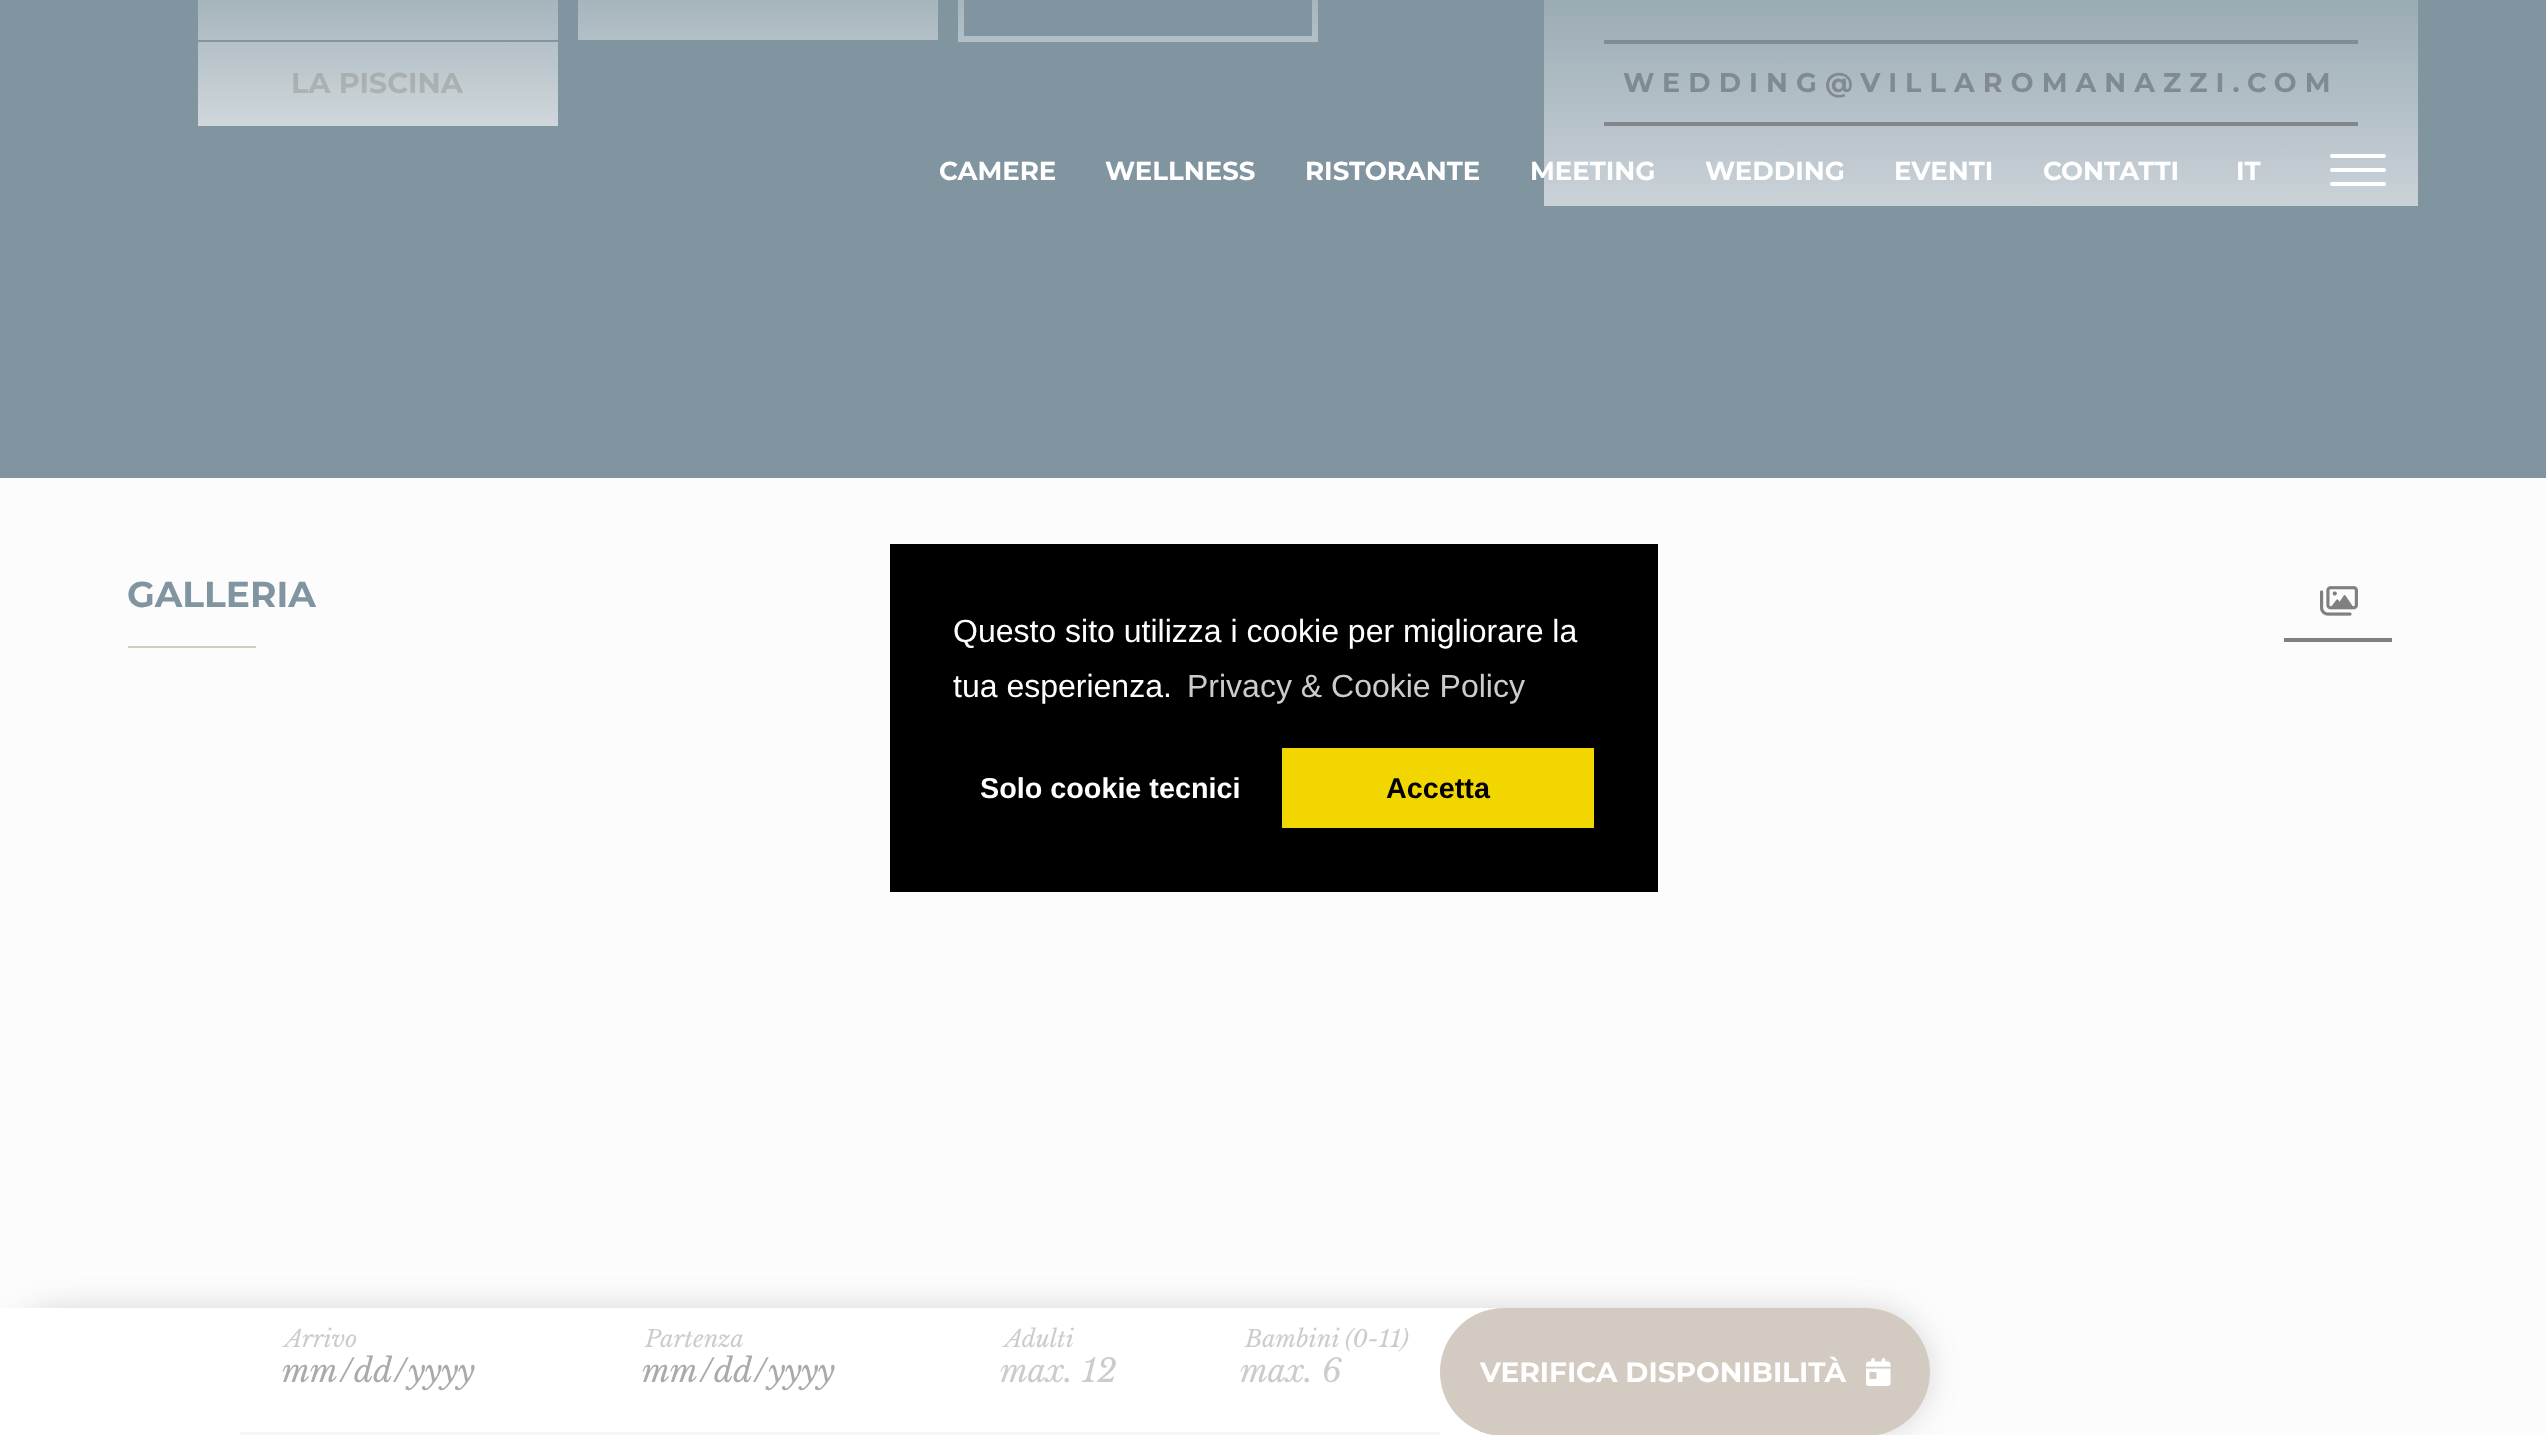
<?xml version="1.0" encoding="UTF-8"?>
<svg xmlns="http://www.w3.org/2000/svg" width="2546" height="1435">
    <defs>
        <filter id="blur1" x="-50%" y="-200%" width="200%" height="500%"><feGaussianBlur stdDeviation="15"/></filter>
        <linearGradient id="g1" gradientUnits="userSpaceOnUse" x1="1273" y1="340" x2="1273" y2="0"><stop offset="0.2" stop-color="#8095A0" stop-opacity="0"/><stop offset="1" stop-color="#8095A0" stop-opacity="0.7"/></linearGradient>
    </defs>
    <rect width="100%" height="100%" fill="#8095A0"/>
    <rect x="198" y="0" width="360" height="40" fill="#FFFFFF"/>
    <rect x="578" y="0" width="360" height="40" fill="#FFFFFF"/>
    <rect x="961" y="-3" width="354" height="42" fill="none" stroke="#FFFFFF" stroke-width="6"/>
    <rect x="198" y="42" width="360" height="84" fill="#FFFFFF"/>
    <text x="291" y="93" font-family="Montserrat" font-size="28.75" font-weight="700" fill="#D3CAC1">LA PISCINA</text>
    <rect x="1544" y="0" width="874" height="206" fill="#D9DFE3"/>
    <rect x="1604" y="40" width="754" height="4" fill="#808080"/>
    <rect x="1604" y="122" width="754" height="4" fill="#808080"/>
    <text x="1623" y="92" font-family="Montserrat" font-size="27" font-weight="700" letter-spacing="8.1" fill="#808080">WEDDING@VILLAROMANAZZI.COM</text>
    <rect x="0" y="478" width="2546" height="957" fill="#FCFCFC"/>
    <text x="127" y="607" font-family="Montserrat" font-size="36" font-weight="700" fill="#8095A0">GALLERIA</text>
    <rect x="128" y="646" width="128" height="2" fill="#D3CAC1"/>
    <rect x="2284" y="638" width="108" height="4" fill="#808080"/>
    <image x="2320" y="586" width="38" height="30" href="img_01.png"/>
    <rect x="0" y="1308" width="1930" height="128" rx="64" fill="#808080" fill-opacity="0.3" filter="url(#blur1)"/>
    <path d="M 0 1308 H 1866 C 1901.5 1308 1930 1336.5 1930 1372 C 1930 1407.5 1901.5 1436 1866 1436 H 0 Z" fill="#FFFFFF"/>
    <text x="285" y="1347" font-family="Libre Baskerville" font-size="23.5" font-style="italic" fill="#CCCCCC">Arrivo</text>
    <rect x="240" y="1432" width="720" height="3" fill="#F6F6F6"/>
    <text x="282" y="1382" font-family="Libre Baskerville" font-size="32" font-style="italic" fill="#AAAAAA">mm</text>
    <text x="340" y="1382" font-family="Libre Baskerville" font-size="32" font-style="italic" fill="#AAAAAA">/</text>
    <text x="354" y="1382" font-family="Libre Baskerville" font-size="32" font-style="italic" fill="#AAAAAA">dd</text>
    <text x="394" y="1382" font-family="Libre Baskerville" font-size="32" font-style="italic" fill="#AAAAAA">/</text>
    <text x="409" y="1382" font-family="Libre Baskerville" font-size="32" font-style="italic" fill="#AAAAAA">yyyy</text>
    <text x="645" y="1347" font-family="Libre Baskerville" font-size="23.5" font-style="italic" fill="#CCCCCC">Partenza</text>
    <text x="642" y="1382" font-family="Libre Baskerville" font-size="32" font-style="italic" fill="#AAAAAA">mm</text>
    <text x="700" y="1382" font-family="Libre Baskerville" font-size="32" font-style="italic" fill="#AAAAAA">/</text>
    <text x="714" y="1382" font-family="Libre Baskerville" font-size="32" font-style="italic" fill="#AAAAAA">dd</text>
    <text x="754" y="1382" font-family="Libre Baskerville" font-size="32" font-style="italic" fill="#AAAAAA">/</text>
    <text x="769" y="1382" font-family="Libre Baskerville" font-size="32" font-style="italic" fill="#AAAAAA">yyyy</text>
    <text x="1005" y="1347" font-family="Libre Baskerville" font-size="23.5" font-style="italic" fill="#CCCCCC">Adulti</text>
    <rect x="960" y="1432" width="480" height="3" fill="#F6F6F6"/>
    <text x="1000" y="1382" font-family="Libre Baskerville" font-size="32" font-style="italic" fill="#CCCCCC">max. 12</text>
    <text x="1245" y="1347" font-family="Libre Baskerville" font-size="23.5" font-style="italic" fill="#CCCCCC">Bambini</text>
    <text x="1345" y="1347" font-family="Libre Baskerville" font-size="23.5" font-style="italic" fill="#CCCCCC">(0-11)</text>
    <text x="1240" y="1382" font-family="Libre Baskerville" font-size="32" font-style="italic" fill="#CCCCCC">max. 6</text>
    <rect x="1440" y="1308" width="490" height="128" rx="64" fill="#D3CAC1"/>
    <text x="1480" y="1382" font-family="Montserrat" font-size="28" font-weight="700" fill="#FFFFFF">VERIFICA DISPONIBILITÀ</text>
    <image x="1866" y="1358" width="25" height="28" href="img_02.png"/>
    <rect x="198" y="0" width="2220" height="206" fill="url(#g1)"/>
    <text x="939" y="180" font-family="Montserrat" font-size="26" font-weight="700" fill="#FFFFFF">CAMERE</text>
    <text x="1105" y="180" font-family="Montserrat" font-size="26" font-weight="700" fill="#FFFFFF">WELLNESS</text>
    <text x="1305" y="180" font-family="Montserrat" font-size="26" font-weight="700" fill="#FFFFFF">RISTORANTE</text>
    <text x="1530" y="180" font-family="Montserrat" font-size="26" font-weight="700" fill="#FFFFFF">MEETING</text>
    <text x="1705" y="180" font-family="Montserrat" font-size="26" font-weight="700" fill="#FFFFFF">WEDDING</text>
    <text x="1894" y="180" font-family="Montserrat" font-size="26" font-weight="700" fill="#FFFFFF">EVENTI</text>
    <text x="2043" y="180" font-family="Montserrat" font-size="26" font-weight="700" fill="#FFFFFF">CONTATTI</text>
    <text x="2236" y="180" font-family="Montserrat" font-size="26" font-weight="700" fill="#FFFFFF">IT</text>
    <rect x="2330" y="154" width="56" height="4" rx="2" fill="#FFFFFF"/>
    <rect x="2330" y="168" width="56" height="4" rx="2" fill="#FFFFFF"/>
    <rect x="2330" y="182" width="56" height="4" rx="2" fill="#FFFFFF"/>
    <rect x="890" y="544" width="768" height="348" fill="#000000"/>
    <text font-family="Liberation Sans" font-size="32" fill="#FFFFFF">
        <tspan x="953" y="642">Questo sito utilizza i cookie per migliorare la</tspan>
        <tspan x="953" y="697">tua esperienza.</tspan>
    </text>
    <text x="1187" y="697" font-family="Liberation Sans" font-size="32" fill="#CCCCCC">Privacy &amp; Cookie Policy</text>
    <text x="980" y="798" font-family="Liberation Sans" font-size="28.75" font-weight="700" fill="#FFFFFF">Solo cookie tecnici</text>
    <rect x="1282" y="748" width="312" height="80" fill="#F1D600"/>
    <text x="1386" y="798" font-family="Liberation Sans" font-size="28.75" font-weight="700" fill="#000000">Accetta</text>
</svg>
